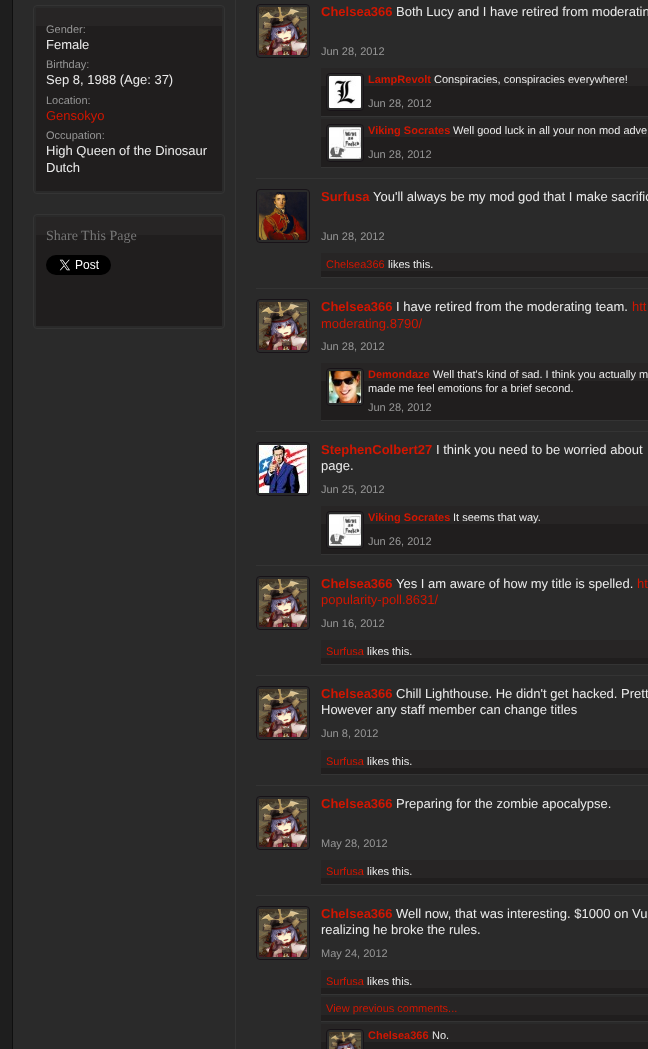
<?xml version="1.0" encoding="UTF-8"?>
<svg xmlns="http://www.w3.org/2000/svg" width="648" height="1049">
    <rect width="100%" height="100%" fill="#1E1E1E"/>
    <rect x="12.5" y="-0.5" width="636" height="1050" fill="#2A2A2A" stroke="#0F0F0F"/>
    <rect x="33.5" y="5.5" width="191" height="188" rx="3.5" fill="none" stroke="#343434"/>
    <rect x="36" y="26" width="186" height="165" fill="#201E1E"/>
    <rect x="36" y="8" width="186" height="18" fill="#272525"/>
    <text x="46" y="33" font-family="Liberation Sans" font-size="11" fill="#969696">Gender:</text>
    <text x="46" y="49" font-family="Liberation Sans" font-size="13" fill="#EBEBEB">Female</text>
    <text x="46" y="68" font-family="Liberation Sans" font-size="11" fill="#969696">Birthday:</text>
    <text x="46" y="84" font-family="Liberation Sans" font-size="13" fill="#EBEBEB">Sep 8, 1988 (Age: 37)</text>
    <text x="46" y="104" font-family="Liberation Sans" font-size="11" fill="#969696">Location:</text>
    <text x="46" y="120" font-family="Liberation Sans" font-size="13" fill="#D11601">Gensokyo</text>
    <text x="46" y="139" font-family="Liberation Sans" font-size="11" fill="#969696">Occupation:</text>
    <text font-family="Liberation Sans" font-size="13" fill="#EBEBEB">
        <tspan x="46" y="155">High Queen of the Dinosaur</tspan>
        <tspan x="46" y="172">Dutch</tspan>
    </text>
    <rect x="33.5" y="214.5" width="191" height="114" rx="3.5" fill="none" stroke="#343434"/>
    <rect x="36" y="235" width="186" height="91" fill="#201E1E"/>
    <rect x="36" y="217" width="186" height="18" fill="#272525"/>
    <text x="46" y="240" font-family="Liberation Serif" font-size="14" fill="#777777">Share This Page</text>
    <image x="46" y="255" width="65" height="20" href="img_01.png"/>
    <rect x="235" y="0" width="1" height="1049" fill="#343434"/>
    <rect x="256" y="178" width="392" height="1" fill="#343434"/>
    <image x="259" y="7" width="48" height="48" href="img_02.png"/>
    <rect x="256.5" y="4.5" width="53" height="53" rx="3.5" fill="none" stroke="#181318"/>
    <text x="321" y="16" font-family="Liberation Sans" font-size="13" font-weight="700" fill="#D11601">Chelsea366</text>
    <text x="396" y="16" font-family="Liberation Sans" font-size="13" fill="#EBEBEB">Both Lucy and I have retired from moderatin</text>
    <text x="321" y="55" font-family="Liberation Sans" font-size="11" fill="#969696">Jun 28, 2012</text>
    <rect x="321" y="86" width="327" height="30" fill="#201E1E"/>
    <rect x="321" y="68" width="327" height="18" fill="#272525"/>
    <rect x="321" y="116" width="327" height="1" fill="#343434"/>
    <rect x="326.5" y="73.5" width="37" height="37" rx="3.5" fill="#2A2A2A" stroke="#181318"/>
    <image x="329" y="76" width="32" height="32" href="img_03.png"/>
    <text x="368" y="83" font-family="Liberation Sans" font-size="11" font-weight="700" fill="#D11601">LampRevolt</text>
    <text x="434" y="83" font-family="Liberation Sans" font-size="11" fill="#EBEBEB">Conspiracies, conspiracies everywhere!</text>
    <text x="368" y="107" font-family="Liberation Sans" font-size="11" fill="#969696">Jun 28, 2012</text>
    <rect x="321" y="137" width="327" height="30" fill="#201E1E"/>
    <rect x="321" y="119" width="327" height="18" fill="#272525"/>
    <rect x="321" y="167" width="327" height="1" fill="#343434"/>
    <rect x="326.5" y="124.5" width="37" height="37" rx="3.5" fill="#2A2A2A" stroke="#181318"/>
    <image x="329" y="127" width="32" height="32" href="img_04.png"/>
    <text x="368" y="134" font-family="Liberation Sans" font-size="11" font-weight="700" fill="#D11601">Viking Socrates</text>
    <text x="453" y="134" font-family="Liberation Sans" font-size="11" fill="#EBEBEB">Well good luck in all your non mod adve</text>
    <text x="368" y="158" font-family="Liberation Sans" font-size="11" fill="#969696">Jun 28, 2012</text>
    <rect x="256" y="288" width="392" height="1" fill="#343434"/>
    <image x="259" y="192" width="48" height="48" href="img_05.png"/>
    <rect x="256.5" y="189.5" width="53" height="53" rx="3.5" fill="none" stroke="#181318"/>
    <text x="321" y="201" font-family="Liberation Sans" font-size="13" font-weight="700" fill="#D11601">Surfusa</text>
    <text x="373" y="201" font-family="Liberation Sans" font-size="13" fill="#EBEBEB">You'll always be my mod god that I make sacrific</text>
    <text x="321" y="240" font-family="Liberation Sans" font-size="11" fill="#969696">Jun 28, 2012</text>
    <rect x="321" y="271" width="327" height="6" fill="#201E1E"/>
    <rect x="321" y="253" width="327" height="18" fill="#272525"/>
    <rect x="321" y="277" width="327" height="1" fill="#343434"/>
    <text x="326" y="268" font-family="Liberation Sans" font-size="11" fill="#D11601">Chelsea366</text>
    <text x="388" y="268" font-family="Liberation Sans" font-size="11" fill="#EBEBEB">likes this.</text>
    <rect x="256" y="431" width="392" height="1" fill="#343434"/>
    <image x="259" y="302" width="48" height="48" href="img_02.png"/>
    <rect x="256.5" y="299.5" width="53" height="53" rx="3.5" fill="none" stroke="#181318"/>
    <text x="321" y="311" font-family="Liberation Sans" font-size="13" font-weight="700" fill="#D11601">Chelsea366</text>
    <text x="396" y="311" font-family="Liberation Sans" font-size="13" fill="#EBEBEB">I have retired from the moderating team.</text>
    <text x="632" y="311" font-family="Liberation Sans" font-size="13" fill="#D11601">htt</text>
    <text x="321" y="328" font-family="Liberation Sans" font-size="13" fill="#D11601">moderating.8790/</text>
    <text x="321" y="350" font-family="Liberation Sans" font-size="11" fill="#969696">Jun 28, 2012</text>
    <rect x="321" y="381" width="327" height="39" fill="#201E1E"/>
    <rect x="321" y="363" width="327" height="18" fill="#272525"/>
    <rect x="321" y="420" width="327" height="1" fill="#343434"/>
    <rect x="326.5" y="368.5" width="37" height="37" rx="3.5" fill="#2A2A2A" stroke="#181318"/>
    <image x="329" y="371" width="32" height="32" href="img_06.png"/>
    <text x="368" y="378" font-family="Liberation Sans" font-size="11" font-weight="700" fill="#D11601">Demondaze</text>
    <text x="433" y="378" font-family="Liberation Sans" font-size="11" fill="#EBEBEB">Well that's kind of sad. I think you actually m</text>
    <text x="368" y="392" font-family="Liberation Sans" font-size="11" fill="#EBEBEB">made me feel emotions for a brief second.</text>
    <text x="368" y="411" font-family="Liberation Sans" font-size="11" fill="#969696">Jun 28, 2012</text>
    <rect x="256" y="565" width="392" height="1" fill="#343434"/>
    <image x="259" y="445" width="48" height="48" href="img_07.png"/>
    <rect x="256.5" y="442.5" width="53" height="53" rx="3.5" fill="none" stroke="#181318"/>
    <text x="321" y="454" font-family="Liberation Sans" font-size="13" font-weight="700" fill="#D11601">StephenColbert27</text>
    <text x="436" y="454" font-family="Liberation Sans" font-size="13" fill="#EBEBEB">I think you need to be worried about</text>
    <text x="321" y="470" font-family="Liberation Sans" font-size="13" fill="#EBEBEB">page.</text>
    <text x="321" y="493" font-family="Liberation Sans" font-size="11" fill="#969696">Jun 25, 2012</text>
    <rect x="321" y="524" width="327" height="30" fill="#201E1E"/>
    <rect x="321" y="506" width="327" height="18" fill="#272525"/>
    <rect x="321" y="554" width="327" height="1" fill="#343434"/>
    <rect x="326.5" y="511.5" width="37" height="37" rx="3.5" fill="#2A2A2A" stroke="#181318"/>
    <image x="329" y="514" width="32" height="32" href="img_04.png"/>
    <text x="368" y="521" font-family="Liberation Sans" font-size="11" font-weight="700" fill="#D11601">Viking Socrates</text>
    <text x="453" y="521" font-family="Liberation Sans" font-size="11" fill="#EBEBEB">It seems that way.</text>
    <text x="368" y="545" font-family="Liberation Sans" font-size="11" fill="#969696">Jun 26, 2012</text>
    <rect x="256" y="675" width="392" height="1" fill="#343434"/>
    <image x="259" y="579" width="48" height="48" href="img_02.png"/>
    <rect x="256.5" y="576.5" width="53" height="53" rx="3.5" fill="none" stroke="#181318"/>
    <text x="321" y="588" font-family="Liberation Sans" font-size="13" font-weight="700" fill="#D11601">Chelsea366</text>
    <text x="396" y="588" font-family="Liberation Sans" font-size="13" fill="#EBEBEB">Yes I am aware of how my title is spelled.</text>
    <text x="637" y="588" font-family="Liberation Sans" font-size="13" fill="#D11601">ht</text>
    <text x="321" y="604" font-family="Liberation Sans" font-size="13" fill="#D11601">popularity-poll.8631/</text>
    <text x="321" y="627" font-family="Liberation Sans" font-size="11" fill="#969696">Jun 16, 2012</text>
    <rect x="321" y="658" width="327" height="6" fill="#201E1E"/>
    <rect x="321" y="640" width="327" height="18" fill="#272525"/>
    <rect x="321" y="664" width="327" height="1" fill="#343434"/>
    <text x="326" y="655" font-family="Liberation Sans" font-size="11" fill="#D11601">Surfusa</text>
    <text x="367" y="655" font-family="Liberation Sans" font-size="11" fill="#EBEBEB">likes this.</text>
    <rect x="256" y="785" width="392" height="1" fill="#343434"/>
    <image x="259" y="689" width="48" height="48" href="img_02.png"/>
    <rect x="256.5" y="686.5" width="53" height="53" rx="3.5" fill="none" stroke="#181318"/>
    <text x="321" y="698" font-family="Liberation Sans" font-size="13" font-weight="700" fill="#D11601">Chelsea366</text>
    <text x="396" y="698" font-family="Liberation Sans" font-size="13" fill="#EBEBEB">Chill Lighthouse. He didn't get hacked. Prett</text>
    <text x="321" y="714" font-family="Liberation Sans" font-size="13" fill="#EBEBEB">However any staff member can change titles</text>
    <text x="321" y="737" font-family="Liberation Sans" font-size="11" fill="#969696">Jun 8, 2012</text>
    <rect x="321" y="768" width="327" height="6" fill="#201E1E"/>
    <rect x="321" y="750" width="327" height="18" fill="#272525"/>
    <rect x="321" y="774" width="327" height="1" fill="#343434"/>
    <text x="326" y="765" font-family="Liberation Sans" font-size="11" fill="#D11601">Surfusa</text>
    <text x="367" y="765" font-family="Liberation Sans" font-size="11" fill="#EBEBEB">likes this.</text>
    <rect x="256" y="895" width="392" height="1" fill="#343434"/>
    <image x="259" y="799" width="48" height="48" href="img_02.png"/>
    <rect x="256.5" y="796.5" width="53" height="53" rx="3.5" fill="none" stroke="#181318"/>
    <text x="321" y="808" font-family="Liberation Sans" font-size="13" font-weight="700" fill="#D11601">Chelsea366</text>
    <text x="396" y="808" font-family="Liberation Sans" font-size="13" fill="#EBEBEB">Preparing for the zombie apocalypse.</text>
    <text x="321" y="847" font-family="Liberation Sans" font-size="11" fill="#969696">May 28, 2012</text>
    <rect x="321" y="878" width="327" height="6" fill="#201E1E"/>
    <rect x="321" y="860" width="327" height="18" fill="#272525"/>
    <rect x="321" y="884" width="327" height="1" fill="#343434"/>
    <text x="326" y="875" font-family="Liberation Sans" font-size="11" fill="#D11601">Surfusa</text>
    <text x="367" y="875" font-family="Liberation Sans" font-size="11" fill="#EBEBEB">likes this.</text>
    <image x="259" y="909" width="48" height="48" href="img_02.png"/>
    <rect x="256.5" y="906.5" width="53" height="53" rx="3.5" fill="none" stroke="#181318"/>
    <text x="321" y="918" font-family="Liberation Sans" font-size="13" font-weight="700" fill="#D11601">Chelsea366</text>
    <text x="396" y="918" font-family="Liberation Sans" font-size="13" fill="#EBEBEB">Well now, that was interesting. $1000 on Vu</text>
    <text x="321" y="934" font-family="Liberation Sans" font-size="13" fill="#EBEBEB">realizing he broke the rules.</text>
    <text x="321" y="957" font-family="Liberation Sans" font-size="11" fill="#969696">May 24, 2012</text>
    <rect x="321" y="988" width="327" height="6" fill="#201E1E"/>
    <rect x="321" y="970" width="327" height="18" fill="#272525"/>
    <rect x="321" y="994" width="327" height="1" fill="#343434"/>
    <text x="326" y="985" font-family="Liberation Sans" font-size="11" fill="#D11601">Surfusa</text>
    <text x="367" y="985" font-family="Liberation Sans" font-size="11" fill="#EBEBEB">likes this.</text>
    <rect x="321" y="1015" width="327" height="6" fill="#201E1E"/>
    <rect x="321" y="997" width="327" height="18" fill="#272525"/>
    <rect x="321" y="1021" width="327" height="1" fill="#343434"/>
    <text x="326" y="1012" font-family="Liberation Sans" font-size="11" fill="#D11601">View previous comments...</text>
    <rect x="321" y="1042" width="327" height="7" fill="#201E1E"/>
    <rect x="321" y="1024" width="327" height="18" fill="#272525"/>
    <rect x="326.5" y="1029.5" width="37" height="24" rx="3.5" fill="#2A2A2A" stroke="#181318"/>
    <image x="329" y="1032" width="32" height="17" href="img_08.png"/>
    <text x="368" y="1039" font-family="Liberation Sans" font-size="11" font-weight="700" fill="#D11601">Chelsea366</text>
    <text x="432" y="1039" font-family="Liberation Sans" font-size="11" fill="#EBEBEB">No.</text>
</svg>
